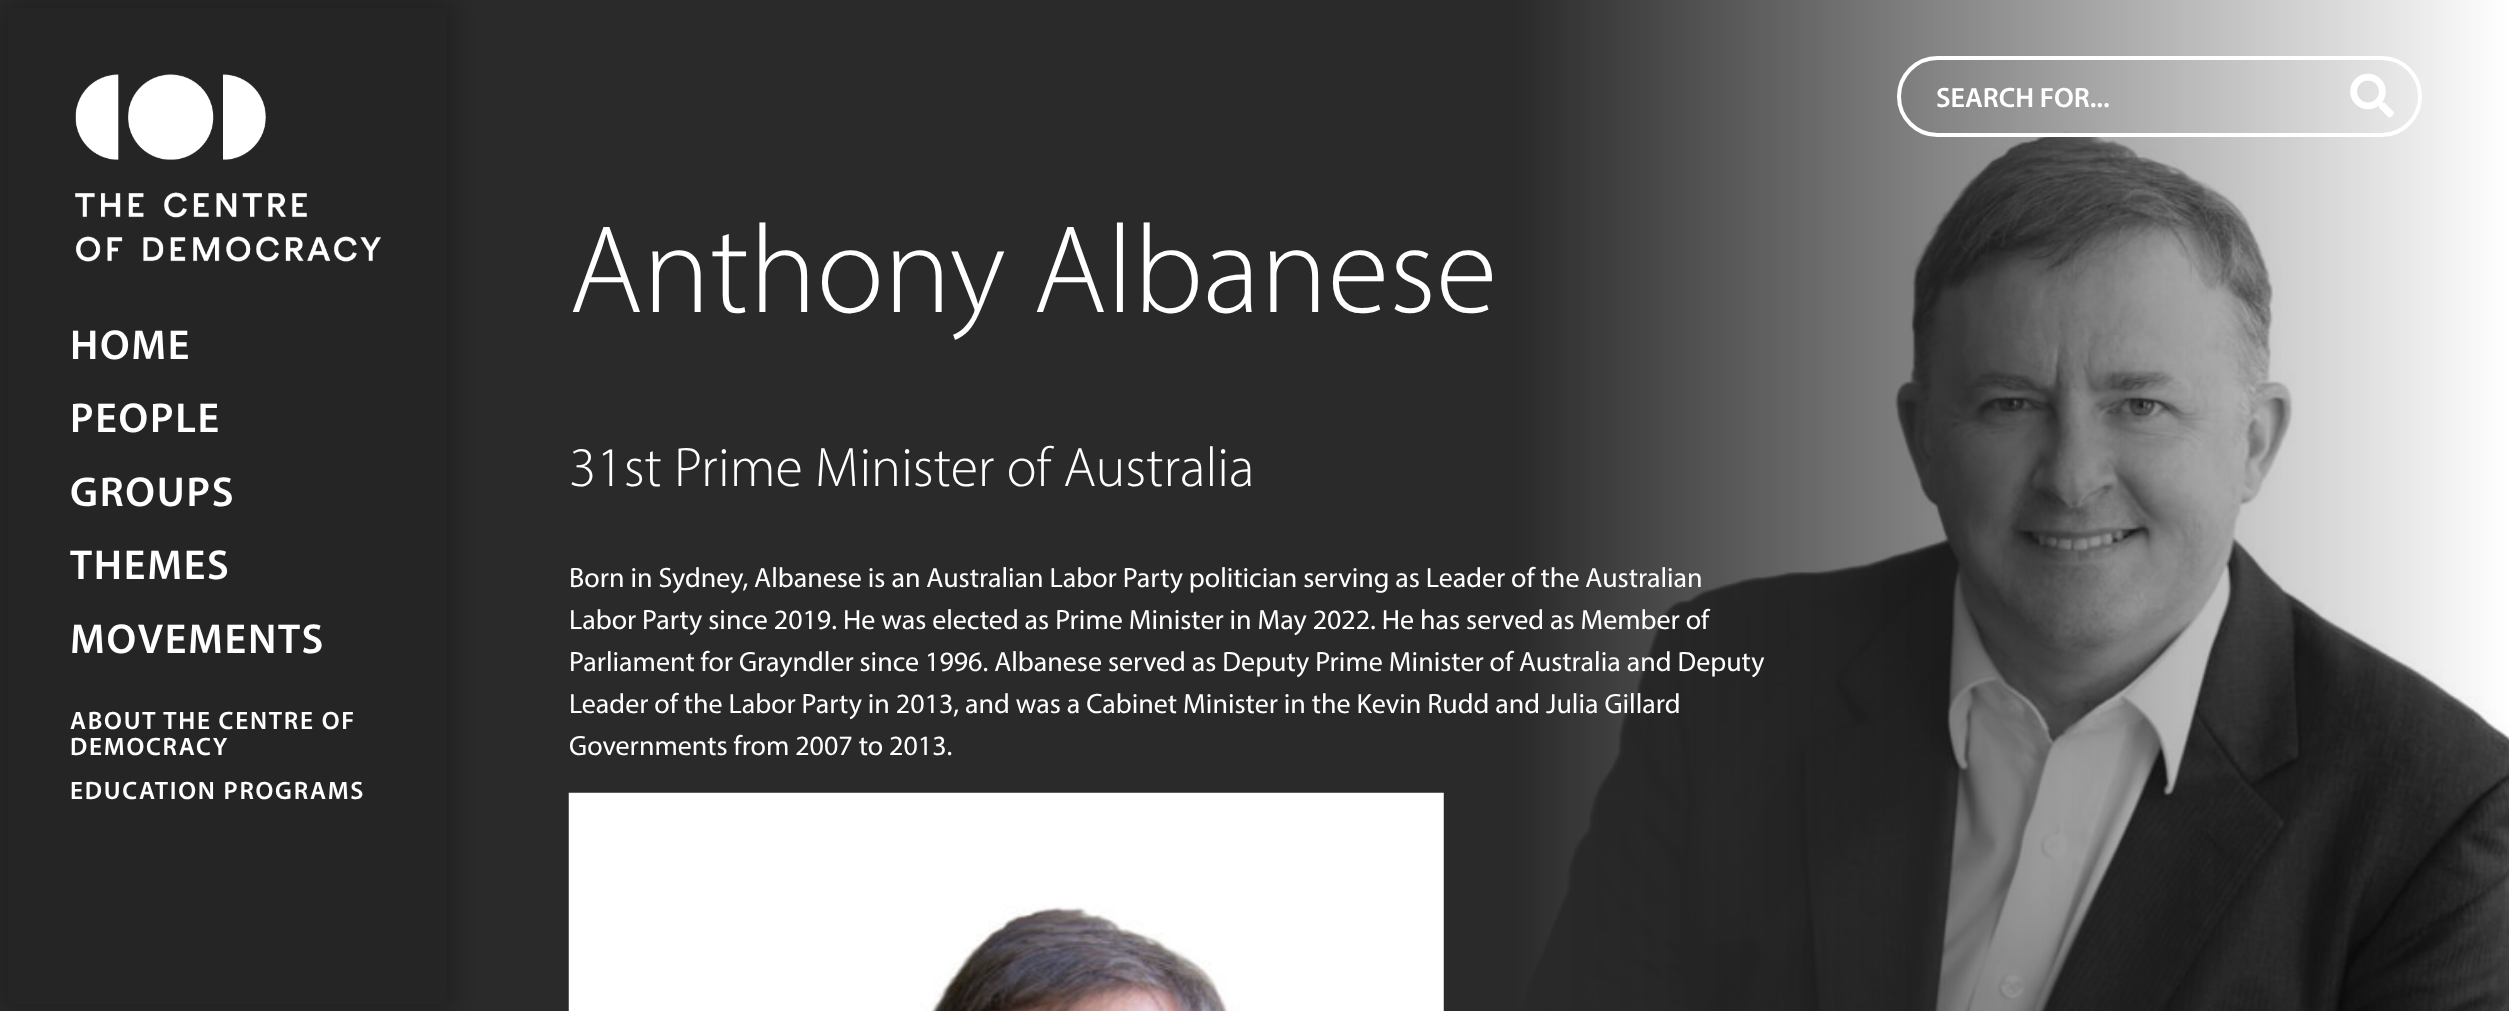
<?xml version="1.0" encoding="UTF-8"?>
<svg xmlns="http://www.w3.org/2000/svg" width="2509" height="1011">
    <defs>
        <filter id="blur1" x="-50%" y="-200%" width="200%" height="500%"><feGaussianBlur stdDeviation="13"/></filter>
    </defs>
    <rect width="100%" height="100%" fill="#2A2A2A"/>
    <image x="1505" y="0" width="1004" height="1011" href="img_01.png"/>
    <rect x="0" y="0" width="455" height="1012" fill="#000000" fill-opacity="0.25" filter="url(#blur1)"/>
    <rect x="8" y="8" width="439" height="996" fill="#252525"/>
    <image x="75" y="74" width="306" height="188" href="img_02.png"/>
    <text font-family="Myriad" font-size="42" font-weight="600" letter-spacing="1.75" fill="#FFFFFF">
        <tspan x="70" y="359">HOME</tspan>
        <tspan x="70" y="432">PEOPLE</tspan>
        <tspan x="70" y="506">GROUPS</tspan>
        <tspan x="70" y="579">THEMES</tspan>
        <tspan x="70" y="653">MOVEMENTS</tspan>
    </text>
    <text font-family="Myriad" font-size="25.25" font-weight="600" letter-spacing="1.75" fill="#FFFFFF">
        <tspan x="70" y="729">ABOUT THE CENTRE OF</tspan>
        <tspan x="70" y="755">DEMOCRACY</tspan>
        <tspan x="70" y="799">EDUCATION PROGRAMS</tspan>
    </text>
    <rect x="1899" y="58" width="521" height="77" rx="38.5" fill="none" stroke="#FFFFFF" stroke-width="4"/>
    <text x="1936" y="107" font-family="Myriad" font-size="28" font-weight="600" fill="#FFFFFF">SEARCH FOR...</text>
    <image x="2350" y="73" width="44" height="45" href="img_03.png"/>
    <text x="569" y="312" font-family="Myriad" font-size="126" font-weight="300" fill="#FFFFFF">Anthony Albanese</text>
    <text x="569" y="486" font-family="Myriad" font-size="56" font-weight="300" fill="#FFFFFF">31st Prime Minister of Australia</text>
    <text font-family="Myriad" font-size="28" fill="#FFFFFF">
        <tspan x="569" y="587">Born in Sydney, Albanese is an Australian Labor Party politician serving as Leader of the Australian</tspan>
        <tspan x="569" y="629">Labor Party since 2019. He was elected as Prime Minister in May 2022. He has served as Member of</tspan>
        <tspan x="569" y="671">Parliament for Grayndler since 1996. Albanese served as Deputy Prime Minister of Australia and Deputy</tspan>
        <tspan x="569" y="713">Leader of the Labor Party in 2013, and was a Cabinet Minister in the Kevin Rudd and Julia Gillard</tspan>
        <tspan x="569" y="755">Governments from 2007 to 2013.</tspan>
    </text>
    <image x="568" y="792" width="876" height="219" href="img_04.png"/>
</svg>
